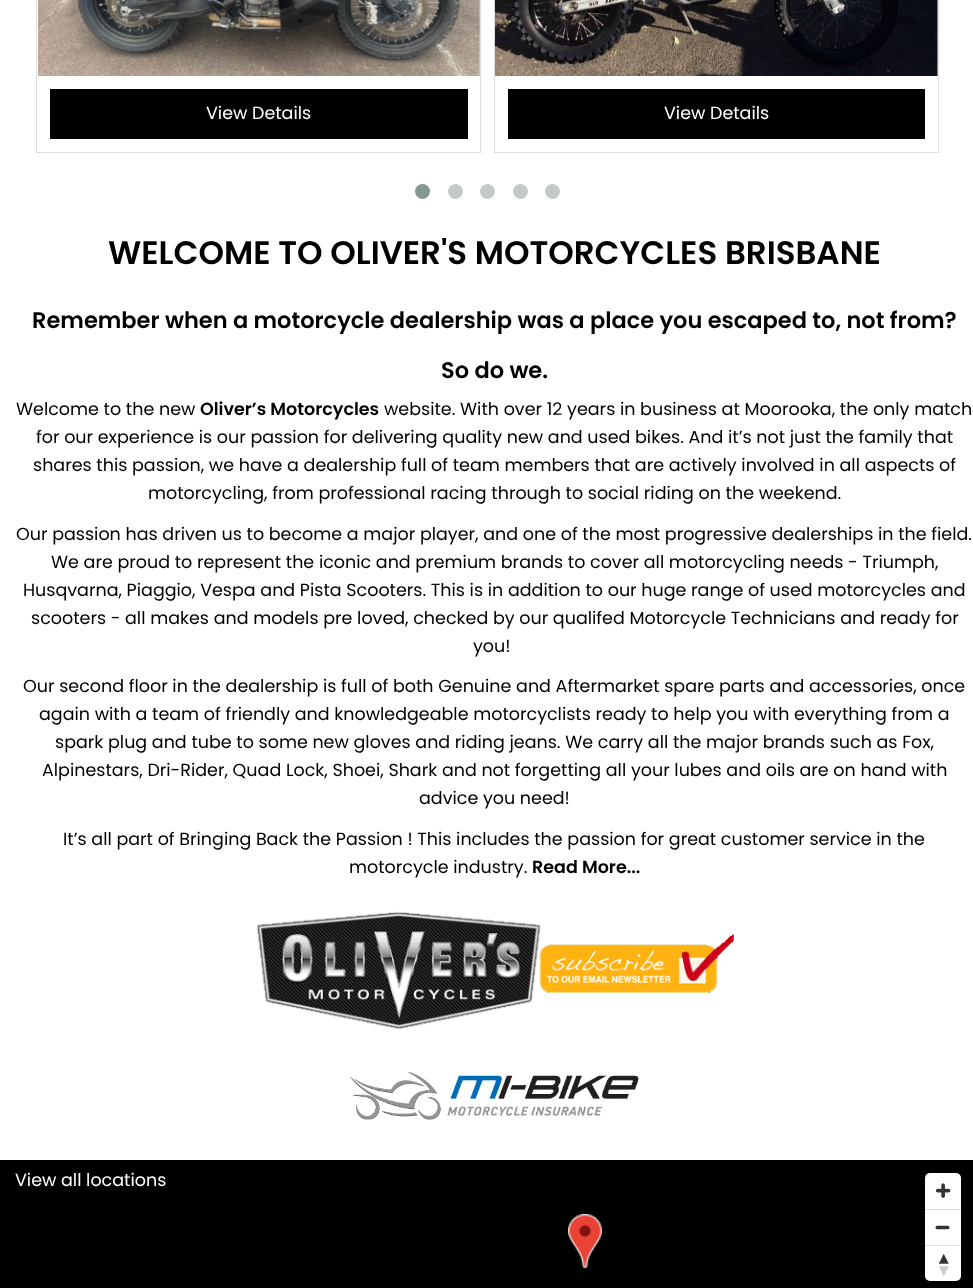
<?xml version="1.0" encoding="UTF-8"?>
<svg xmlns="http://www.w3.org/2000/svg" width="973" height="1288">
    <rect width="100%" height="100%" fill="#000000"/>
    <rect x="0" y="0" width="973" height="1160" fill="#FFFFFF"/>
    <rect x="36.5" y="-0.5" width="444" height="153" fill="none" stroke="#DCDDDE"/>
    <image x="38" y="0" width="442" height="76" href="img_01.png"/>
    <rect x="50" y="89" width="418" height="50" fill="#000000"/>
    <text x="206" y="119" font-family="Poppins" font-size="17.5" fill="#FFFFFF">View Details</text>
    <rect x="494.5" y="-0.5" width="444" height="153" fill="none" stroke="#DCDDDE"/>
    <image x="495" y="0" width="443" height="76" href="img_02.png"/>
    <rect x="508" y="89" width="417" height="50" fill="#000000"/>
    <text x="664" y="119" font-family="Poppins" font-size="17.5" fill="#FFFFFF">View Details</text>
    <circle cx="422.5" cy="191.5" r="7.5" fill="#869791"/>
    <circle cx="455.5" cy="191.5" r="7.5" fill="#C3CBC8"/>
    <circle cx="487.5" cy="191.5" r="7.5" fill="#C3CBC8"/>
    <circle cx="520.5" cy="191.5" r="7.5" fill="#C3CBC8"/>
    <circle cx="552.5" cy="191.5" r="7.5" fill="#C3CBC8"/>
    <text x="108" y="264" font-family="Poppins" font-size="32.5" font-weight="600" fill="#000000">WELCOME TO OLIVER'S MOTORCYCLES BRISBANE</text>
    <text x="32" y="328" font-family="Poppins" font-size="22.5" font-weight="600" fill="#000000">Remember when a motorcycle dealership was a place you escaped to, not from?</text>
    <text x="441" y="378" font-family="Poppins" font-size="22.5" font-weight="600" fill="#000000">So do we.</text>
    <text x="16" y="415" font-family="Poppins" font-size="17.5" fill="#000000">Welcome to the new</text>
    <text x="200" y="415" font-family="Poppins" font-size="17.5" font-weight="600" fill="#000000">Oliver’s Motorcycles</text>
    <text x="384" y="415" font-family="Poppins" font-size="17.5" fill="#000000">website. With over 12 years in business at Moorooka, the only match</text>
    <text x="36" y="443" font-family="Poppins" font-size="17.5" fill="#000000">for our experience is our passion for delivering quality new and used bikes. And it’s not just the family that</text>
    <text x="33" y="471" font-family="Poppins" font-size="17.5" fill="#000000">shares this passion, we have a dealership full of team members that are actively involved in all aspects of</text>
    <text x="148" y="499" font-family="Poppins" font-size="17.5" fill="#000000">motorcycling, from professional racing through to social riding on the weekend.</text>
    <text x="16" y="540" font-family="Poppins" font-size="17.5" fill="#000000">Our passion has driven us to become a major player, and one of the most progressive dealerships in the field.</text>
    <text x="51" y="568" font-family="Poppins" font-size="17.5" fill="#000000">We are proud to represent the iconic and premium brands to cover all motorcycling needs - Triumph,</text>
    <text x="23" y="596" font-family="Poppins" font-size="17.5" fill="#000000">Husqvarna, Piaggio, Vespa and Pista Scooters. This is in addition to our huge range of used motorcycles and</text>
    <text x="31" y="624" font-family="Poppins" font-size="17.5" fill="#000000">scooters - all makes and models pre loved, checked by our qualifed Motorcycle Technicians and ready for</text>
    <text x="473" y="652" font-family="Poppins" font-size="17.5" fill="#000000">you!</text>
    <text x="23" y="692" font-family="Poppins" font-size="17.5" fill="#000000">Our second floor in the dealership is full of both Genuine and Aftermarket spare parts and accessories, once</text>
    <text x="39" y="720" font-family="Poppins" font-size="17.5" fill="#000000">again with a team of friendly and knowledgeable motorcyclists ready to help you with everything from a</text>
    <text x="55" y="748" font-family="Poppins" font-size="17.5" fill="#000000">spark plug and tube to some new gloves and riding jeans. We carry all the major brands such as Fox,</text>
    <text x="42" y="776" font-family="Poppins" font-size="17.5" fill="#000000">Alpinestars, Dri-Rider, Quad Lock, Shoei, Shark and not forgetting all your lubes and oils are on hand with</text>
    <text x="419" y="804" font-family="Poppins" font-size="17.5" fill="#000000">advice you need!</text>
    <text x="63" y="845" font-family="Poppins" font-size="17.5" fill="#000000">It’s all part of Bringing Back the Passion ! This includes the passion for great customer service in the</text>
    <text x="349" y="873" font-family="Poppins" font-size="17.5" fill="#000000">motorcycle industry.</text>
    <text x="532" y="873" font-family="Poppins" font-size="17.5" font-weight="600" fill="#000000">Read More...</text>
    <image x="256" y="910" width="478" height="119" href="img_03.png"/>
    <image x="350" y="1071" width="289" height="49" href="img_04.png"/>
    <text x="15" y="1186" font-family="Poppins" font-size="17.5" fill="#FFFFFF">View all locations</text>
    <image x="568" y="1214" width="34" height="54" href="img_05.png"/>
    <rect x="925" y="1173" width="36" height="108" rx="5" fill="#FFFFFF"/>
    <image x="935" y="1183" width="16" height="15" href="img_06.png"/>
    <image x="935" y="1225" width="15" height="5" href="img_07.png"/>
    <rect x="925" y="1209" width="36" height="1" fill="#DDDDDD"/>
    <rect x="925" y="1245" width="36" height="1" fill="#DDDDDD"/>
    <image x="938" y="1253" width="11" height="23" href="img_08.png"/>
</svg>
